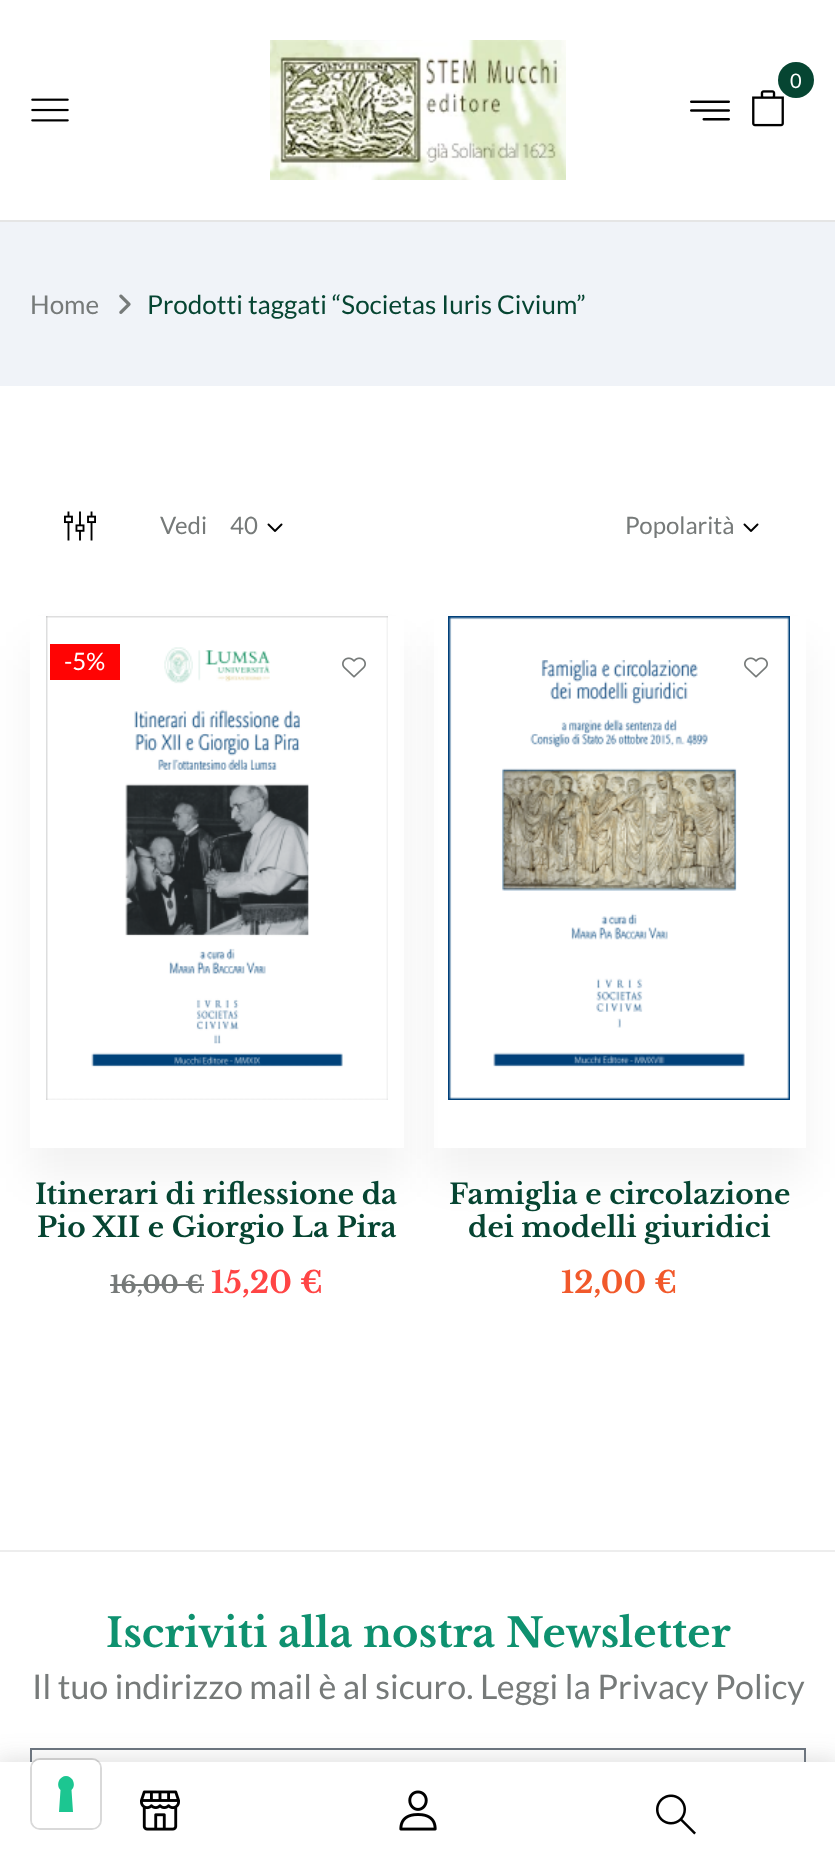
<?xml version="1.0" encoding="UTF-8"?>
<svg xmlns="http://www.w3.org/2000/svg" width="835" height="1860">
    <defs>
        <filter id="blur1" x="-50%" y="-200%" width="200%" height="500%"><feGaussianBlur stdDeviation="12"/></filter>
        <clipPath id="clip1"><path d="M 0 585 H 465 V 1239 H 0 Z M 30 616 H 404 V 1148 H 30 Z" clip-rule="evenodd"/></clipPath>
        <filter id="blur2" x="-50%" y="-200%" width="200%" height="500%"><feGaussianBlur stdDeviation="20"/></filter>
        <clipPath id="clip2"><path d="M 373 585 H 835 V 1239 H 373 Z M 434 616 H 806 V 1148 H 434 Z" clip-rule="evenodd"/></clipPath>
    </defs>
    <rect width="100%" height="100%" fill="#FFFFFF"/>
    <rect x="0" y="220" width="835" height="2" fill="#E5E5E5"/>
    <image x="270" y="40" width="296" height="140" href="img_01.png"/>
    <image x="752" y="90" width="32" height="37" href="img_02.png"/>
    <circle cx="796" cy="80" r="18" fill="#064532"/>
    <text x="790" y="88" font-family="Lato" font-size="20" fill="#FFFFFF">0</text>
    <image x="690" y="100" width="40" height="21" href="img_03.png"/>
    <image x="31" y="98" width="38" height="24" href="img_04.png"/>
    <rect x="31" y="1749" width="774" height="78" fill="none" stroke="#69727D" stroke-width="2"/>
    <rect x="-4" y="1760" width="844" height="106" fill="#8F8F8F" fill-opacity="0.3" filter="url(#blur1)"/>
    <rect x="0" y="1762" width="835" height="98" fill="#FFFFFF"/>
    <image x="140" y="1790" width="40" height="41" href="img_05.png"/>
    <image x="399" y="1790" width="38" height="41" href="img_06.png"/>
    <image x="656" y="1794" width="40" height="41" href="img_07.png"/>
    <rect x="0" y="222" width="835" height="164" fill="#F0F3F8"/>
    <text x="30" y="314" font-family="Lato" font-size="26" fill="#767A79">Home</text>
    <image x="119" y="294" width="12" height="20" href="img_08.png"/>
    <text x="147" y="314" font-family="Lato" font-size="26" fill="#064532">Prodotti taggati “Societas Iuris Civium”</text>
    <image x="64" y="511" width="32" height="30" href="img_09.png"/>
    <text x="160" y="534" font-family="Lato" font-size="24" fill="#767A79">Vedi</text>
    <text x="230" y="534" font-family="Lato" font-size="24" fill="#767A79">40</text>
    <image x="267" y="523" width="16" height="9" href="img_10.png"/>
    <text x="625" y="534" font-family="Lato" font-size="24" fill="#767A79">Popolarità</text>
    <image x="743" y="523" width="16" height="9" href="img_10.png"/>
    <g clip-path="url(#clip1)">
        <rect x="30" y="646" width="374" height="532" fill="#000000" fill-opacity="0.05" filter="url(#blur2)"/>
    </g>
    <image x="46" y="616" width="342" height="484" href="img_11.png"/>
    <rect x="50" y="644" width="70" height="36" fill="#FF0404"/>
    <text x="64" y="670" font-family="Lato" font-size="24" fill="#FFFFFF">-5%</text>
    <image x="342" y="657" width="24" height="21" href="img_12.png"/>
    <text x="35" y="1204" font-family="Libre Baskerville" font-size="28" font-weight="700" fill="#064532">Itinerari di riflessione da</text>
    <text x="37" y="1237" font-family="Libre Baskerville" font-size="28" font-weight="700" fill="#064532">Pio XII e Giorgio La Pira</text>
    <text x="110" y="1293" font-family="Libre Baskerville" font-size="24" font-weight="700" fill="#767A79">16,00 €</text>
    <rect x="110" y="1284" width="94" height="2" fill="#767A79"/>
    <text x="211" y="1293" font-family="Libre Baskerville" font-size="30" font-weight="700" fill="#FF4545">15,20 €</text>
    <g clip-path="url(#clip2)">
        <rect x="434" y="646" width="372" height="532" fill="#000000" fill-opacity="0.05" filter="url(#blur2)"/>
    </g>
    <image x="448" y="616" width="342" height="484" href="img_13.png"/>
    <image x="744" y="657" width="24" height="21" href="img_12.png"/>
    <text x="449" y="1204" font-family="Libre Baskerville" font-size="28" font-weight="700" fill="#064532">Famiglia e circolazione</text>
    <text x="468" y="1237" font-family="Libre Baskerville" font-size="28" font-weight="700" fill="#064532">dei modelli giuridici</text>
    <text x="561" y="1293" font-family="Libre Baskerville" font-size="30" font-weight="700" fill="#F1592B">12,00 €</text>
    <rect x="0" y="1550" width="835" height="2" fill="#EDEDED"/>
    <text x="106" y="1647" font-family="Libre Baskerville" font-size="40" font-weight="700" fill="#0E916F">Iscriviti alla nostra Newsletter</text>
    <text x="32" y="1699" font-family="Lato" font-size="34" fill="#767A79">Il tuo indirizzo mail è al sicuro. Leggi la Privacy Policy</text>
    <rect x="31" y="1759" width="70" height="70" rx="9" fill="none" stroke="#000000" stroke-opacity="0.15" stroke-width="2"/>
    <rect x="32" y="1760" width="68" height="68" rx="8" fill="#FFFFFF"/>
    <path d="M 66 1776 C 73 1776 76.5 1785.5 71.5 1790 L 73 1812 H 59 L 60.5 1790 C 55.5 1785.5 59 1776 66 1776 Z" fill="#1CC691" fill-rule="evenodd"/>
</svg>
